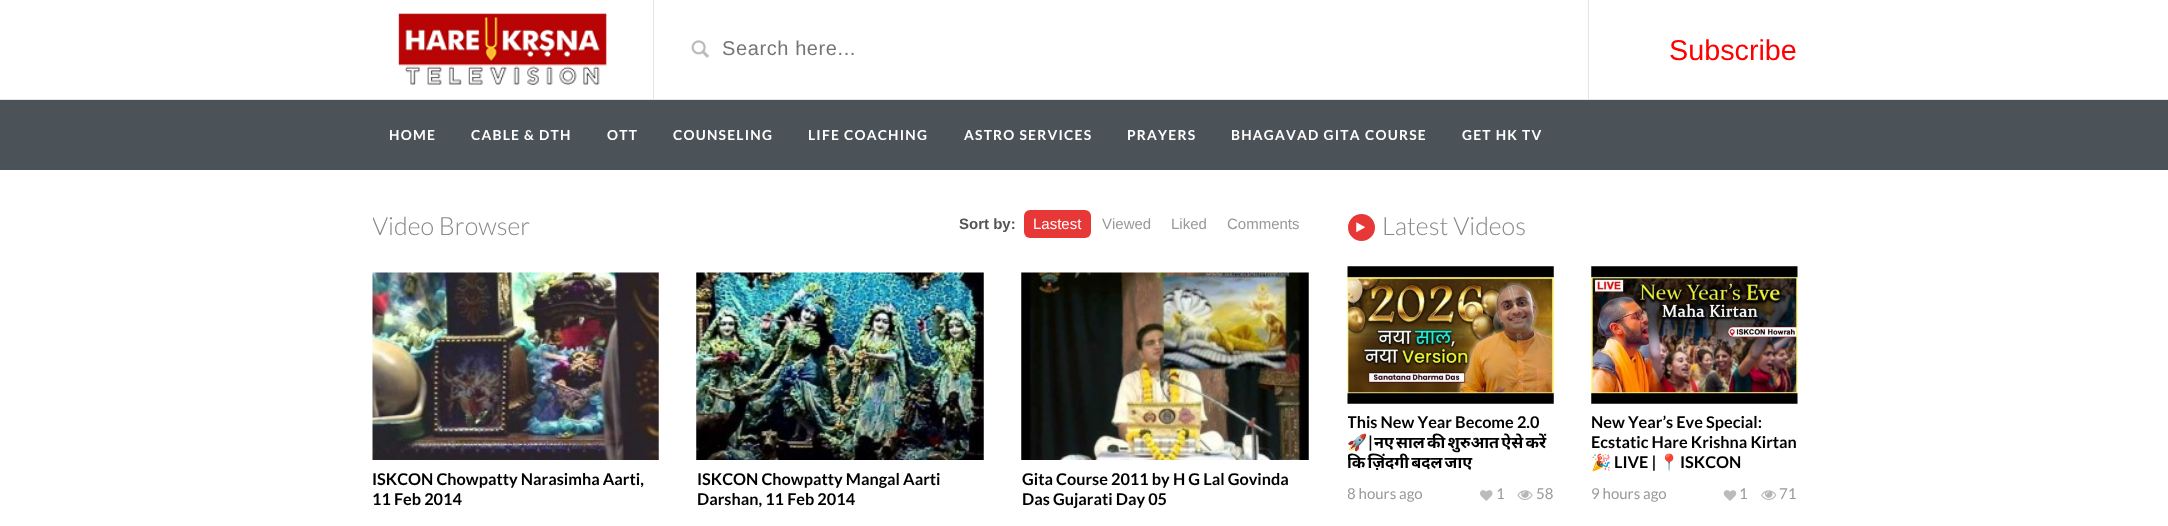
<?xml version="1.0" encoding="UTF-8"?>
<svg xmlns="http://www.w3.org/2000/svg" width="2168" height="526">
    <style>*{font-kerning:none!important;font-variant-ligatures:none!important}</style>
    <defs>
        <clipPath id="clip1"><rect x="373" y="208" width="937" height="40"/></clipPath>
        <clipPath id="clip2"><rect x="1348" y="410" width="206" height="69"/></clipPath>
        <clipPath id="clip3"><rect x="1348" y="484" width="206" height="21"/></clipPath>
        <clipPath id="clip4"><rect x="1591" y="410" width="207" height="69"/></clipPath>
    </defs>
    <rect width="100%" height="100%" fill="#FFFFFF"/>
    <rect x="0" y="99" width="2168" height="1" fill="#E5E5E5"/>
    <rect x="653" y="0" width="1" height="99" fill="#E5E5E5"/>
    <image x="398" y="13" width="209" height="72" href="img_01.png"/>
    <image x="691" y="40" width="18" height="18" href="img_02.png"/>
    <text x="722" y="55" font-family="Liberation Sans" font-size="20" letter-spacing="0.6" fill="#757575">Search here...</text>
    <rect x="1588" y="0" width="1" height="99" fill="#E5E5E5"/>
    <text x="1669" y="60" font-family="Liberation Sans" font-size="28.75" fill="#FF0000">Subscribe</text>
    <rect x="0" y="100" width="2168" height="70" fill="#4C5358"/>
    <text x="389" y="140" font-family="Lato" font-size="13.75" font-weight="700" letter-spacing="1.25" fill="#FFFFFF">HOME</text>
    <text x="471" y="140" font-family="Lato" font-size="13.75" font-weight="700" letter-spacing="1.25" fill="#FFFFFF">CABLE &amp; DTH</text>
    <text x="607" y="140" font-family="Lato" font-size="13.75" font-weight="700" letter-spacing="1.25" fill="#FFFFFF">OTT</text>
    <text x="673" y="140" font-family="Lato" font-size="13.75" font-weight="700" letter-spacing="1.25" fill="#FFFFFF">COUNSELING</text>
    <text x="808" y="140" font-family="Lato" font-size="13.75" font-weight="700" letter-spacing="1.25" fill="#FFFFFF">LIFE COACHING</text>
    <text x="964" y="140" font-family="Lato" font-size="13.75" font-weight="700" letter-spacing="1.25" fill="#FFFFFF">ASTRO SERVICES</text>
    <text x="1127" y="140" font-family="Lato" font-size="13.75" font-weight="700" letter-spacing="1.25" fill="#FFFFFF">PRAYERS</text>
    <text x="1231" y="140" font-family="Lato" font-size="13.75" font-weight="700" letter-spacing="1.25" fill="#FFFFFF">BHAGAVAD GITA</text>
    <text x="1365" y="140" font-family="Lato" font-size="13.75" font-weight="700" letter-spacing="1.25" fill="#FFFFFF">COURSE</text>
    <text x="1462" y="140" font-family="Lato" font-size="13.75" font-weight="700" letter-spacing="1.25" fill="#FFFFFF">GET HK TV</text>
    <g clip-path="url(#clip1)">
        <text x="372" y="235" font-family="Lato" font-size="25" font-weight="300" fill="#888888">Video Browser</text>
    </g>
    <text x="959" y="229" font-family="Liberation Sans" font-size="15" font-weight="700" fill="#555555">Sort by:</text>
    <rect x="1024" y="210" width="67" height="28" rx="6" fill="#E73737"/>
    <text x="1033" y="229" font-family="Liberation Sans" font-size="15" fill="#FFFFFF">Lastest</text>
    <text x="1102" y="229" font-family="Liberation Sans" font-size="15" fill="#999999">Viewed</text>
    <text x="1171" y="229" font-family="Liberation Sans" font-size="15" fill="#999999">Liked</text>
    <text x="1227" y="229" font-family="Liberation Sans" font-size="15" fill="#999999">Comments</text>
    <image x="372" y="272" width="287" height="188" href="img_03.png"/>
    <text font-family="Lato" font-size="16.25" font-weight="700" fill="#000000">
        <tspan x="372" y="485">ISKCON Chowpatty Narasimha Aarti,</tspan>
        <tspan x="372" y="505">11 Feb 2014</tspan>
    </text>
    <image x="696" y="272" width="288" height="188" href="img_04.png"/>
    <text font-family="Lato" font-size="16.25" font-weight="700" fill="#000000">
        <tspan x="697" y="485">ISKCON Chowpatty Mangal Aarti</tspan>
        <tspan x="697" y="505">Darshan, 11 Feb 2014</tspan>
    </text>
    <image x="1021" y="272" width="288" height="188" href="img_05.png"/>
    <text font-family="Lato" font-size="16.25" font-weight="700" fill="#000000">
        <tspan x="1022" y="485">Gita Course 2011 by H G Lal Govinda</tspan>
        <tspan x="1022" y="505">Das Gujarati Day 05</tspan>
    </text>
    <circle cx="1361.5" cy="227.5" r="13.5" fill="#E73737"/>
    <image x="1356" y="222" width="9" height="10" href="img_06.png"/>
    <text x="1382" y="235" font-family="Lato" font-size="25" font-weight="300" fill="#888888">Latest Videos</text>
    <image x="1347" y="266" width="207" height="138" href="img_07.png"/>
    <g clip-path="url(#clip2)">
        <text x="1347" y="428" font-family="Lato" font-size="16.25" font-weight="700" fill="#000000">This New Year Become 2.0</text>
        <text x="1347" y="448" font-family="Noto Color Emoji" font-size="16.25" font-weight="700" fill="#000000">🚀</text>
    </g>
    <text x="1368" y="448" font-family="Lato" font-size="16.25" font-weight="700" fill="#000000">|</text>
    <text x="1374" y="448" word-spacing="-2" font-family="Noto Sans" font-size="16.25" font-weight="700" fill="#000000">नए साल की शुरुआत ऐसे करें</text>
    <g clip-path="url(#clip2)">
        <text x="1347" y="468" word-spacing="-2" font-family="Noto Sans" font-size="16.25" font-weight="700" fill="#000000">कि ज़िंदगी बदल जाए</text>
    </g>
    <g clip-path="url(#clip3)">
        <text x="1347" y="499" font-family="Lato" font-size="15" fill="#999999">8 hours ago</text>
    </g>
    <image x="1480" y="490" width="13" height="11" href="img_08.png"/>
    <text x="1496" y="499" font-family="Lato" font-size="15" fill="#999999">1</text>
    <image x="1517" y="490" width="16" height="10" href="img_09.png"/>
    <text x="1536" y="499" font-family="Lato" font-size="15" fill="#999999">58</text>
    <image x="1591" y="266" width="207" height="138" href="img_10.png"/>
    <text font-family="Lato" font-size="16.25" font-weight="700" fill="#000000">
        <tspan x="1591" y="428">New Year’s Eve Special:</tspan>
        <tspan x="1591" y="448">Ecstatic Hare Krishna Kirtan</tspan>
    </text>
    <g clip-path="url(#clip4)">
        <text x="1591" y="468" font-family="Noto Color Emoji" font-size="16.25" font-weight="700" fill="#000000">🎉</text>
    </g>
    <text x="1614" y="468" font-family="Lato" font-size="16.25" font-weight="700" fill="#000000">LIVE |</text>
    <text x="1659" y="468" font-family="Noto Color Emoji" font-size="16.25" font-weight="700" fill="#000000">📍</text>
    <text x="1680" y="468" font-family="Lato" font-size="16.25" font-weight="700" fill="#000000">ISKCON</text>
    <text x="1591" y="499" font-family="Lato" font-size="15" fill="#999999">9 hours ago</text>
    <image x="1723" y="490" width="14" height="11" href="img_11.png"/>
    <text x="1739" y="499" font-family="Lato" font-size="15" fill="#999999">1</text>
    <image x="1761" y="490" width="16" height="10" href="img_12.png"/>
    <text x="1779" y="499" font-family="Lato" font-size="15" fill="#999999">71</text>
</svg>
